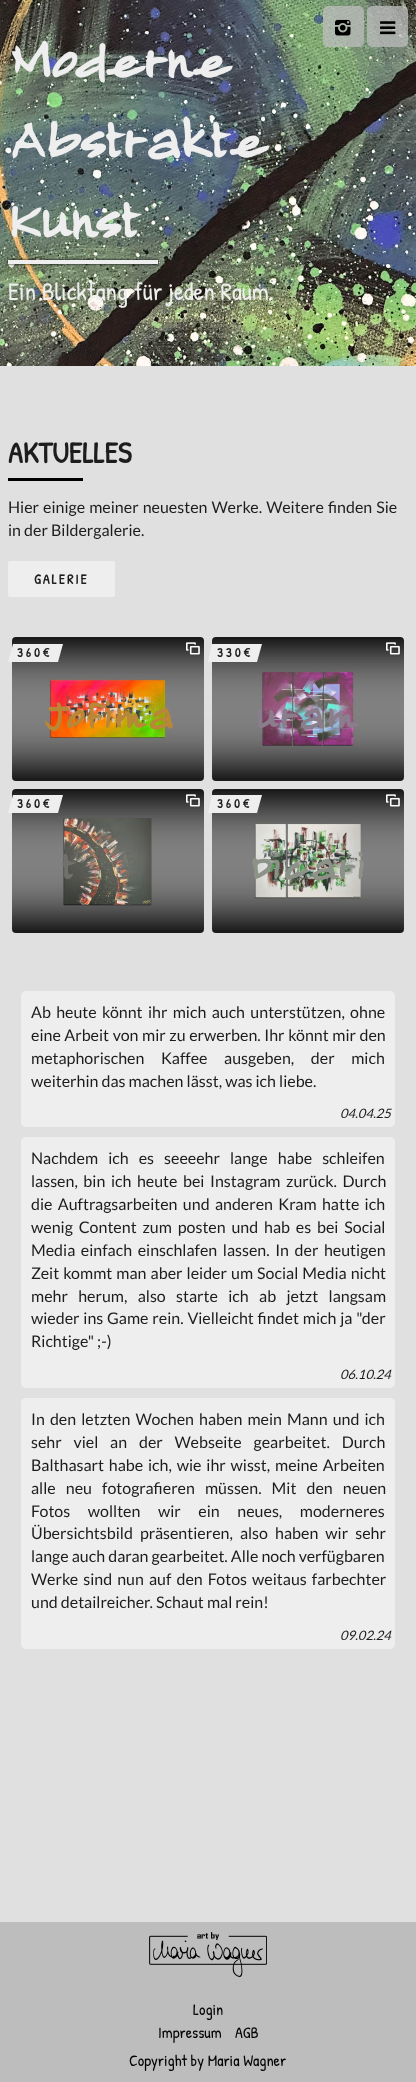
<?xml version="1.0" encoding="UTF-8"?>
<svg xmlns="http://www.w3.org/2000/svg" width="416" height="2082">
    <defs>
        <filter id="blur1" x="-50%" y="-200%" width="200%" height="500%"><feGaussianBlur stdDeviation="1.5"/></filter>
    </defs>
    <rect width="100%" height="100%" fill="#E0E0E0"/>
    <image x="0" y="0" width="416" height="366" href="img_01.png"/>
    <rect x="323" y="6" width="41" height="41" rx="5" fill="#BDBDBD" fill-opacity="0.75"/>
    <image x="335" y="19" width="16" height="17" href="img_02.png"/>
    <rect x="367" y="6" width="41" height="41" rx="5" fill="#BDBDBD" fill-opacity="0.75"/>
    <image x="380" y="21" width="16" height="14" href="img_03.png"/>
    <text font-family="Long Cang" font-size="70" font-weight="700" fill="#EEEEEE">
        <tspan x="8" y="83">Moderne</tspan>
        <tspan x="8" y="163">Abstrakte</tspan>
        <tspan x="8" y="243">Kunst</tspan>
    </text>
    <rect x="8" y="260" width="150" height="4" fill="#000000" filter="url(#blur1)"/>
    <rect x="8" y="260" width="150" height="4" fill="#EEEEEE"/>
    <text x="8" y="300" font-family="Patrick Hand" font-size="25" fill="#EEEEEE">Ein Blickfang für jeden Raum.</text>
    <text x="8" y="463" font-family="Patrick Hand" font-size="30" font-weight="700" fill="#1D1D1D">AKTUELLES</text>
    <rect x="8" y="478" width="75" height="3" fill="#000000"/>
    <text font-family="Lato" font-size="16" fill="#1D1D1D">
        <tspan x="8" y="513" word-spacing="1">Hier einige meiner neuesten Werke. Weitere finden Sie</tspan>
        <tspan x="8" y="536">in der Bildergalerie.</tspan>
    </text>
    <rect x="8" y="561" width="107" height="36" rx="2" fill="#EEEEEE"/>
    <text x="34" y="584" font-family="Patrick Hand" font-size="14" font-weight="700" letter-spacing="2" fill="#1D1D1D">GALERIE</text>
    <image x="12" y="637" width="192" height="144" href="img_04.png"/>
    <path d="M 13 644 H 63 L 58 662 H 8 Z" fill="#EEEEEE"/>
    <text x="17" y="657" font-family="Patrick Hand" font-size="13" font-weight="700" letter-spacing="3" fill="#1D1D1D">360€</text>
    <image x="186" y="642" width="14" height="13" href="img_05.png"/>
    <text x="42" y="732" font-family="Long Cang" font-size="50" font-weight="700" letter-spacing="3" fill="#B88836">Jofima</text>
    <image x="212" y="637" width="192" height="144" href="img_06.png"/>
    <path d="M 212 644 H 262 L 257 662 H 208 Z" fill="#EEEEEE"/>
    <text x="217" y="657" font-family="Patrick Hand" font-size="13" font-weight="700" letter-spacing="3" fill="#1D1D1D">330€</text>
    <image x="386" y="642" width="14" height="13" href="img_07.png"/>
    <text x="255" y="732" font-family="Long Cang" font-size="50" font-weight="700" letter-spacing="3" fill="#8A7E8C">uram</text>
    <image x="12" y="789" width="192" height="144" href="img_08.png"/>
    <path d="M 13 795 H 63 L 58 813 H 8 Z" fill="#EEEEEE"/>
    <text x="17" y="808" font-family="Patrick Hand" font-size="13" font-weight="700" letter-spacing="3" fill="#1D1D1D">360€</text>
    <image x="186" y="794" width="14" height="13" href="img_07.png"/>
    <text x="60" y="883" font-family="Long Cang" font-size="50" font-weight="700" letter-spacing="3" fill="#71706A">t</text>
    <image x="212" y="789" width="192" height="144" href="img_09.png"/>
    <path d="M 212 795 H 262 L 257 813 H 208 Z" fill="#EEEEEE"/>
    <text x="217" y="808" font-family="Patrick Hand" font-size="13" font-weight="700" letter-spacing="3" fill="#1D1D1D">360€</text>
    <image x="386" y="794" width="14" height="13" href="img_05.png"/>
    <text x="250" y="883" font-family="Long Cang" font-size="50" font-weight="700" letter-spacing="3" fill="#8C9288">Dicari</text>
    <rect x="21" y="991" width="374" height="136" rx="5" fill="#EEEEEE"/>
    <text font-family="Lato" font-size="16" fill="#1D1D1D">
        <tspan x="31" y="1018" word-spacing="2.25">Ab heute könnt ihr mich auch unterstützen, ohne</tspan>
        <tspan x="31" y="1041" word-spacing="0.5">eine Arbeit von mir zu erwerben. Ihr könnt mir den</tspan>
        <tspan x="31" y="1064" word-spacing="13.5">metaphorischen Kaffee ausgeben, der mich</tspan>
        <tspan x="31" y="1087">weiterhin das machen lässt, was ich liebe.</tspan>
    </text>
    <text x="340" y="1118" font-family="Lato" font-size="13" font-style="italic" fill="#1D1D1D">04.04.25</text>
    <rect x="21" y="1137" width="374" height="251" rx="5" fill="#EEEEEE"/>
    <text font-family="Lato" font-size="16" fill="#1D1D1D">
        <tspan x="31" y="1164" word-spacing="7">Nachdem ich es seeeehr lange habe schleifen</tspan>
        <tspan x="31" y="1187" word-spacing="2.5">lassen, bin ich heute bei Instagram zurück. Durch</tspan>
        <tspan x="31" y="1210" word-spacing="2.25">die Auftragsarbeiten und anderen Kram hatte ich</tspan>
        <tspan x="31" y="1233" word-spacing="2.75">wenig Content zum posten und hab es bei Social</tspan>
        <tspan x="31" y="1256" word-spacing="2.5">Media einfach einschlafen lassen. In der heutigen</tspan>
        <tspan x="31" y="1279" word-spacing="1">Zeit kommt man aber leider um Social Media nicht</tspan>
        <tspan x="31" y="1302" word-spacing="7.25">mehr herum, also starte ich ab jetzt langsam</tspan>
        <tspan x="31" y="1324" word-spacing="0.75">wieder ins Game rein. Vielleicht findet mich ja "der</tspan>
        <tspan x="31" y="1347">Richtige" ;-)</tspan>
    </text>
    <text x="340" y="1379" font-family="Lato" font-size="13" font-style="italic" fill="#1D1D1D">06.10.24</text>
    <rect x="21" y="1398" width="374" height="251" rx="5" fill="#EEEEEE"/>
    <text font-family="Lato" font-size="16" fill="#1D1D1D">
        <tspan x="31" y="1425" word-spacing="2">In den letzten Wochen haben mein Mann und ich</tspan>
        <tspan x="31" y="1448" word-spacing="8.75">sehr viel an der Webseite gearbeitet. Durch</tspan>
        <tspan x="31" y="1471" word-spacing="1.75">Balthasart habe ich, wie ihr wisst, meine Arbeiten</tspan>
        <tspan x="31" y="1494" word-spacing="7">alle neu fotografieren müssen. Mit den neuen</tspan>
        <tspan x="31" y="1517" word-spacing="14.5">Fotos wollten wir ein neues, moderneres</tspan>
        <tspan x="31" y="1539" word-spacing="4">Übersichtsbild präsentieren, also haben wir sehr</tspan>
        <tspan x="31" y="1562">lange auch daran gearbeitet. Alle noch verfügbaren</tspan>
        <tspan x="31" y="1585" word-spacing="2">Werke sind nun auf den Fotos weitaus farbechter</tspan>
        <tspan x="31" y="1608">und detailreicher. Schaut mal rein!</tspan>
    </text>
    <text x="340" y="1640" font-family="Lato" font-size="13" font-style="italic" fill="#1D1D1D">09.02.24</text>
    <rect x="0" y="1922" width="416" height="160" fill="#BDBDBD"/>
    <image x="149" y="1932" width="118" height="45" href="img_10.png"/>
    <text x="193" y="2015" font-family="Patrick Hand" font-size="16" fill="#000000">Login</text>
    <text x="158" y="2038" font-family="Patrick Hand" font-size="16" fill="#000000">Impressum</text>
    <text x="235" y="2038" font-family="Patrick Hand" font-size="16" fill="#000000">AGB</text>
    <text x="129" y="2066" font-family="Patrick Hand" font-size="16" fill="#000000">Copyright by Maria Wagner</text>
</svg>
